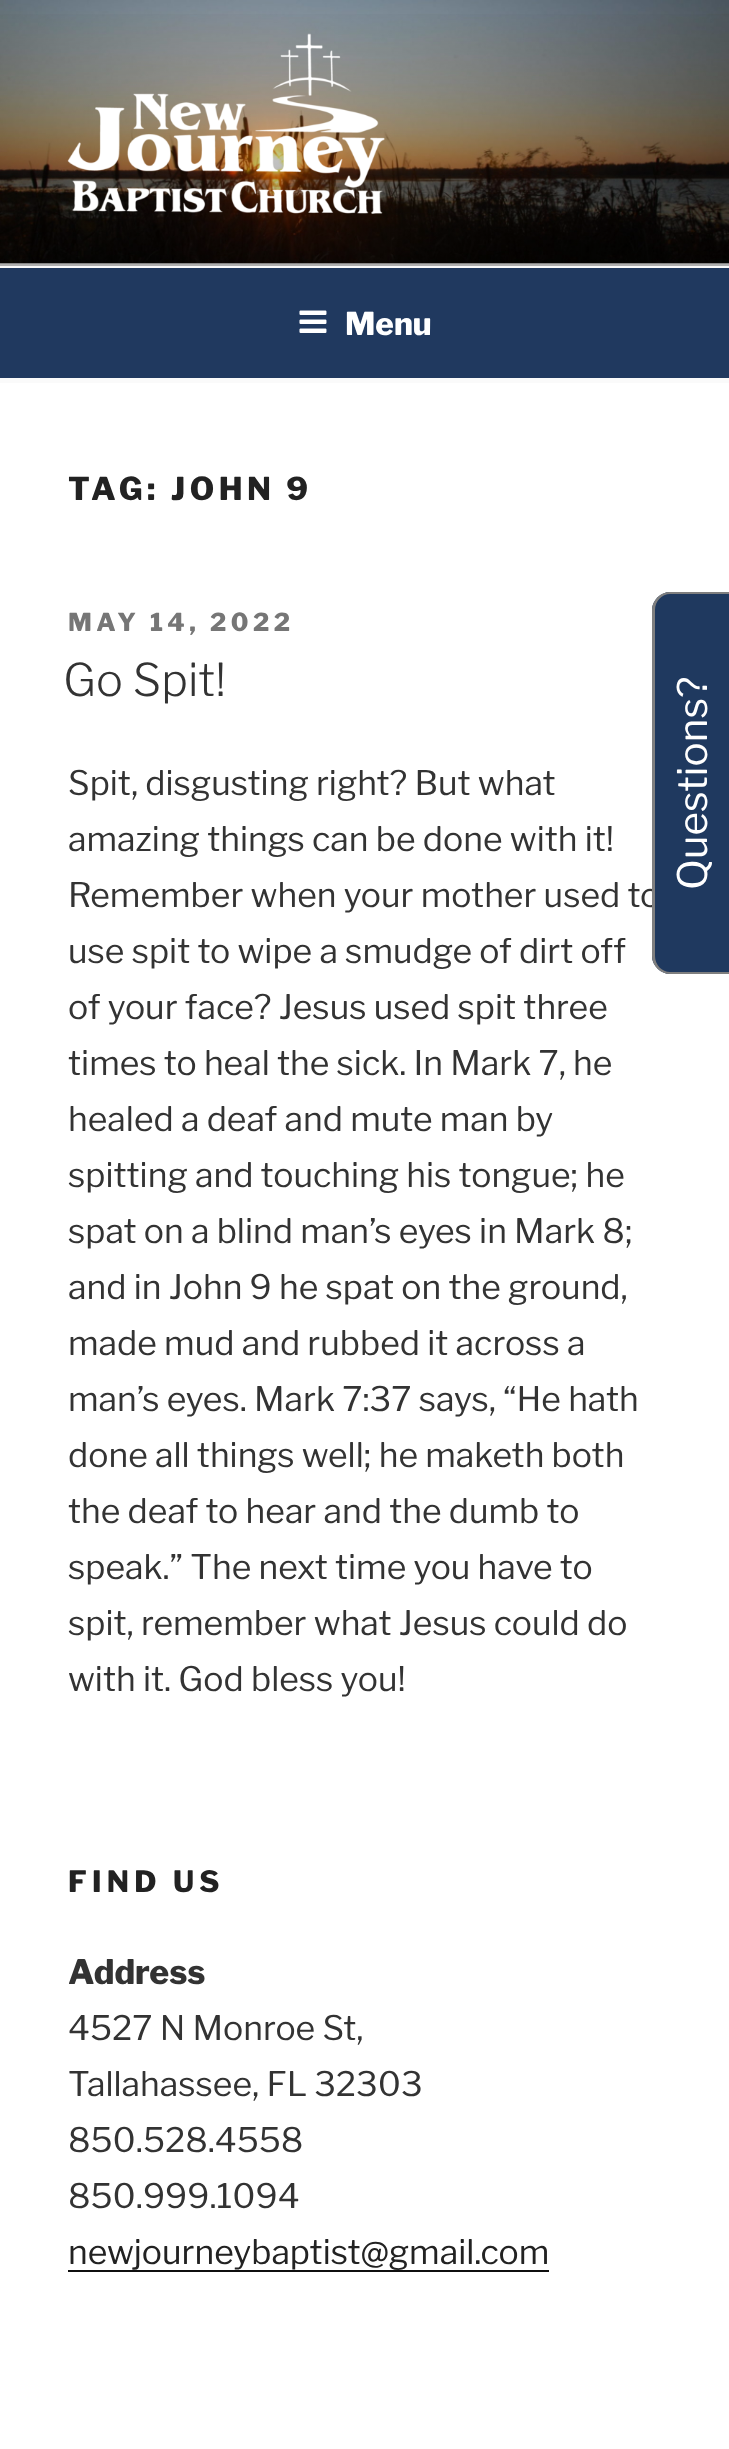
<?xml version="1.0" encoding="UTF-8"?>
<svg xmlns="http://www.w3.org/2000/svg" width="729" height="2449">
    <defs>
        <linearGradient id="g1" gradientUnits="userSpaceOnUse" x1="365" y1="0" x2="365" y2="266"><stop offset="0" stop-color="#000000" stop-opacity="0"/><stop offset="0.75" stop-color="#000000" stop-opacity="0.3"/><stop offset="1" stop-color="#000000" stop-opacity="0.3"/></linearGradient>
    </defs>
    <rect width="100%" height="100%" fill="#FFFFFF"/>
    <rect x="0" y="263" width="729" height="120" fill="#FAFAFA"/>
    <image x="0" y="0" width="729" height="264" href="img_01.png"/>
    <rect x="0" y="14" width="729" height="252" fill="url(#g1)"/>
    <image x="67" y="33" width="318" height="181" href="img_02.png"/>
    <rect x="0" y="268" width="729" height="110" fill="#20395F"/>
    <image x="299" y="310" width="28" height="23" href="img_03.png"/>
    <text x="345" y="335" font-family="Libre Franklin" font-size="31.5" font-weight="100" fill="#FFFFFF">Menu</text>
    <text x="68" y="500" font-family="Libre Franklin" font-size="31.5" font-weight="100" letter-spacing="4.5" fill="#222222">TAG: JOHN 9</text>
    <text x="68" y="631" font-family="Libre Franklin" font-size="24.75" font-weight="100" letter-spacing="4.5" fill="#767676">MAY 14, 2022</text>
    <text x="63" y="696" font-family="'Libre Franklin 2'" font-size="45" font-weight="100" fill="#333333">Go Spit!</text>
    <text font-family="'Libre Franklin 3'" font-size="33.75" font-weight="100" fill="#333333">
        <tspan x="68" y="795">Spit, disgusting right? But what</tspan>
        <tspan x="68" y="851">amazing things can be done with it!</tspan>
        <tspan x="68" y="907">Remember when your mother used to</tspan>
        <tspan x="68" y="963">use spit to wipe a smudge of dirt off</tspan>
        <tspan x="68" y="1019">of your face? Jesus used spit three</tspan>
        <tspan x="68" y="1075">times to heal the sick. In Mark 7, he</tspan>
        <tspan x="68" y="1131">healed a deaf and mute man by</tspan>
        <tspan x="68" y="1187">spitting and touching his tongue; he</tspan>
        <tspan x="68" y="1243">spat on a blind man’s eyes in Mark 8;</tspan>
        <tspan x="68" y="1299">and in John 9 he spat on the ground,</tspan>
        <tspan x="68" y="1355">made mud and rubbed it across a</tspan>
        <tspan x="68" y="1411">man’s eyes. Mark 7:37 says, “He hath</tspan>
        <tspan x="68" y="1467">done all things well; he maketh both</tspan>
        <tspan x="68" y="1523">the deaf to hear and the dumb to</tspan>
        <tspan x="68" y="1579">speak.” The next time you have to</tspan>
        <tspan x="68" y="1635">spit, remember what Jesus could do</tspan>
        <tspan x="68" y="1691">with it. God bless you!</tspan>
    </text>
    <text x="68" y="1892" font-family="Libre Franklin" font-size="29.25" font-weight="100" letter-spacing="5.25" fill="#222222">FIND US</text>
    <text x="68" y="1984" font-family="Libre Franklin" font-size="33.75" font-weight="100" fill="#333333">Address</text>
    <text font-family="'Libre Franklin 3'" font-size="33.75" font-weight="100" fill="#333333">
        <tspan x="68" y="2040">4527 N Monroe St,</tspan>
        <tspan x="68" y="2096">Tallahassee, FL 32303</tspan>
        <tspan x="68" y="2152">850.528.4558</tspan>
        <tspan x="68" y="2208">850.999.1094</tspan>
    </text>
    <text x="68" y="2264" font-family="'Libre Franklin 3'" font-size="33.75" font-weight="100" fill="#222222">newjourneybaptist@gmail.com</text>
    <rect x="68" y="2270" width="481" height="2" fill="#0F0F0F"/>
    <path d="M 652 956 V 610 C 652 600 661 592 670 592 H 729 V 974 H 670 C 661 974 652 966 652 956 Z" fill="#1F395F"/>
    <path d="M 652 956 V 610 C 652 600 661 592 670 592 H 729 V 974 H 670 C 661 974 652 966 652 956 Z M 655 956 V 610 C 655 601 662 594 670 594 H 729 V 972 H 670 C 662 972 655 965 655 956 Z" fill="#7F7F7F" fill-rule="evenodd"/>
    <text x="707" y="890" transform="rotate(-90 707 890)" font-family="'Libre Franklin 3'" font-size="40.5" font-weight="100" fill="#FFFFFF">Questions?</text>
</svg>
